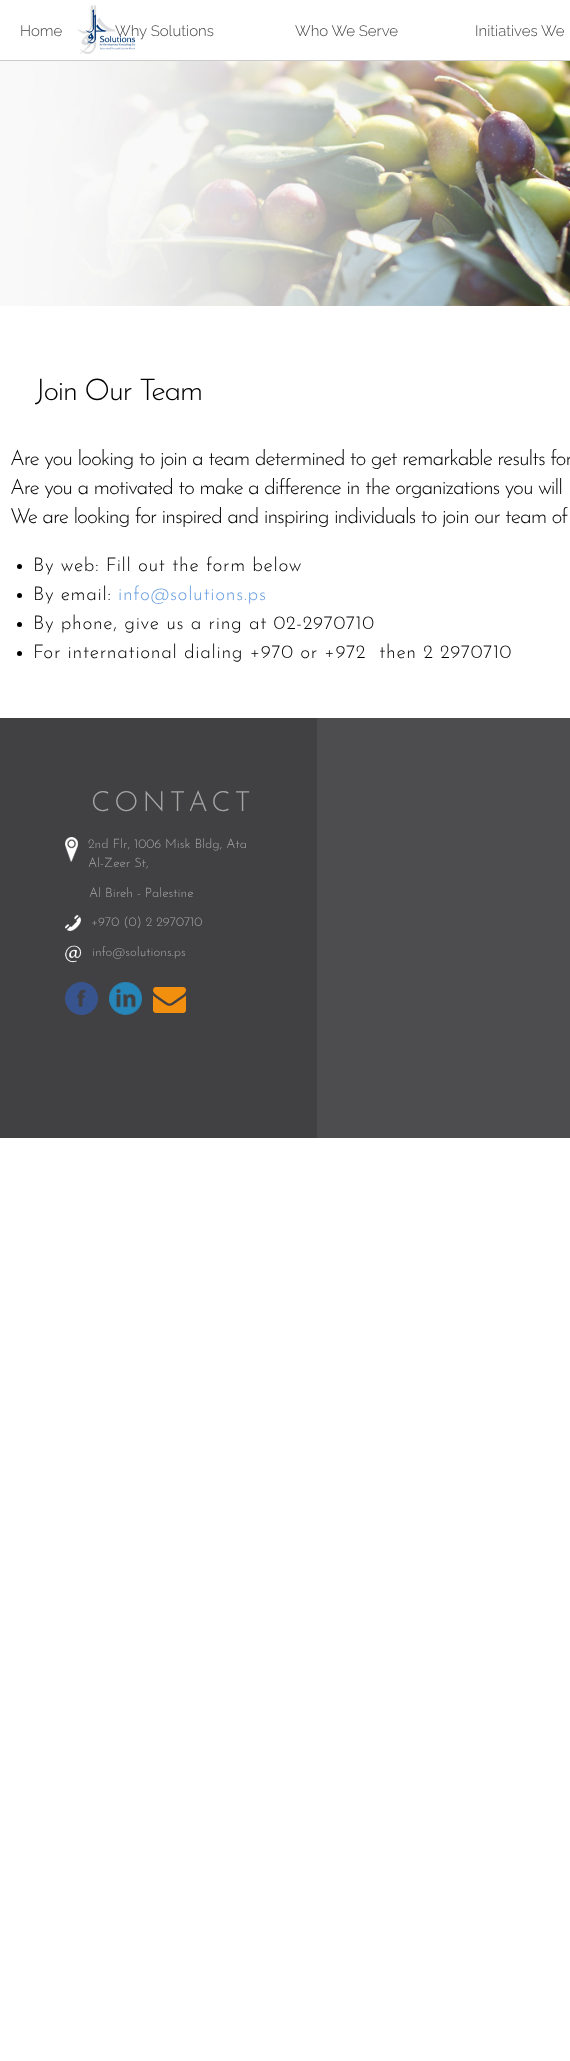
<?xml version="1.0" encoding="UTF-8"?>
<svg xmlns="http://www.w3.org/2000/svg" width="570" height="2061">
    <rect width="100%" height="100%" fill="#FFFFFF"/>
    <rect x="0" y="60" width="570" height="1" fill="#CCCCCC"/>
    <image x="77" y="5" width="58" height="49" href="img_01.png"/>
    <text x="20" y="36" font-family="Raleway" font-size="15" font-weight="300" fill="#444444">Home</text>
    <text x="115" y="36" font-family="Raleway" font-size="15" font-weight="300" fill="#444444">Why Solutions</text>
    <text x="295" y="36" font-family="Raleway" font-size="15" font-weight="300" fill="#444444">Who We Serve</text>
    <text x="475" y="36" font-family="Raleway" font-size="15" font-weight="300" fill="#444444">Initiatives We</text>
    <image x="0" y="61" width="570" height="245" href="img_02.png"/>
    <text x="35" y="400" font-family="Josefin Sans" font-size="30" font-weight="300" letter-spacing="-1.5" fill="#000000">Join Our Team</text>
    <text font-family="Josefin Sans" font-size="21" font-weight="300" letter-spacing="-1.05" fill="#000000">
        <tspan x="10" y="465">Are you looking to join a team determined to get remarkable results for</tspan>
        <tspan x="10" y="494">Are you a motivated to make a difference in the organizations you will</tspan>
        <tspan x="10" y="523">We are looking for inspired and inspiring individuals to join our team of</tspan>
    </text>
    <circle cx="19.5" cy="566.5" r="2.5" fill="#000000"/>
    <text x="33" y="571" font-family="Josefin Sans" font-size="19" font-weight="300" letter-spacing="0.67" fill="#000000">By web: Fill out the form below</text>
    <circle cx="19.5" cy="595.5" r="2.5" fill="#000000"/>
    <text x="33" y="600" font-family="Josefin Sans" font-size="19" font-weight="300" letter-spacing="0.67" fill="#000000">By email:</text>
    <text x="118" y="600" font-family="Josefin Sans" font-size="19" font-weight="300" letter-spacing="0.67" fill="#689EE1">info@solutions.ps</text>
    <circle cx="19.5" cy="624.5" r="2.5" fill="#000000"/>
    <text x="33" y="629" font-family="Josefin Sans" font-size="19" font-weight="300" letter-spacing="0.67" fill="#000000">By phone, give us a ring at 02-2970710</text>
    <circle cx="19.5" cy="653.5" r="2.5" fill="#000000"/>
    <text x="33" y="658" font-family="Josefin Sans" font-size="19" font-weight="300" letter-spacing="0.67" fill="#000000" xml:space="preserve">For international dialing +970 or +972  then 2 2970710</text>
    <rect x="0" y="718" width="317" height="420" fill="#414042"/>
    <text x="91" y="811" font-family="Josefin Sans" font-size="28" font-weight="300" letter-spacing="4" fill="#A5A5A5">CONTACT</text>
    <image x="65" y="837" width="13" height="25" href="img_03.png"/>
    <text font-family="Josefin Sans" font-size="13" font-weight="300" fill="#A5A5A5">
        <tspan x="88" y="848">2nd Flr, 1006 Misk Bldg, Ata</tspan>
        <tspan x="88" y="867">Al-Zeer St,</tspan>
    </text>
    <text x="89" y="897" font-family="Josefin Sans" font-size="13" font-weight="300" fill="#A5A5A5">Al Bireh - Palestine</text>
    <image x="65" y="915" width="16" height="16" href="img_04.png"/>
    <text x="91" y="926" font-family="Josefin Sans" font-size="13" font-weight="300" fill="#A5A5A5">+970 (0) 2 2970710</text>
    <image x="65" y="945" width="17" height="18" href="img_05.png"/>
    <text x="92" y="956" font-family="Josefin Sans" font-size="13" font-weight="300" fill="#A5A5A5">info@solutions.ps</text>
    <image x="65" y="982" width="33" height="33" href="img_06.png"/>
    <image x="109" y="982" width="33" height="33" href="img_07.png"/>
    <image x="153" y="987" width="33" height="26" href="img_08.png"/>
    <rect x="317" y="718" width="253" height="420" fill="#4D4D4F"/>
</svg>
